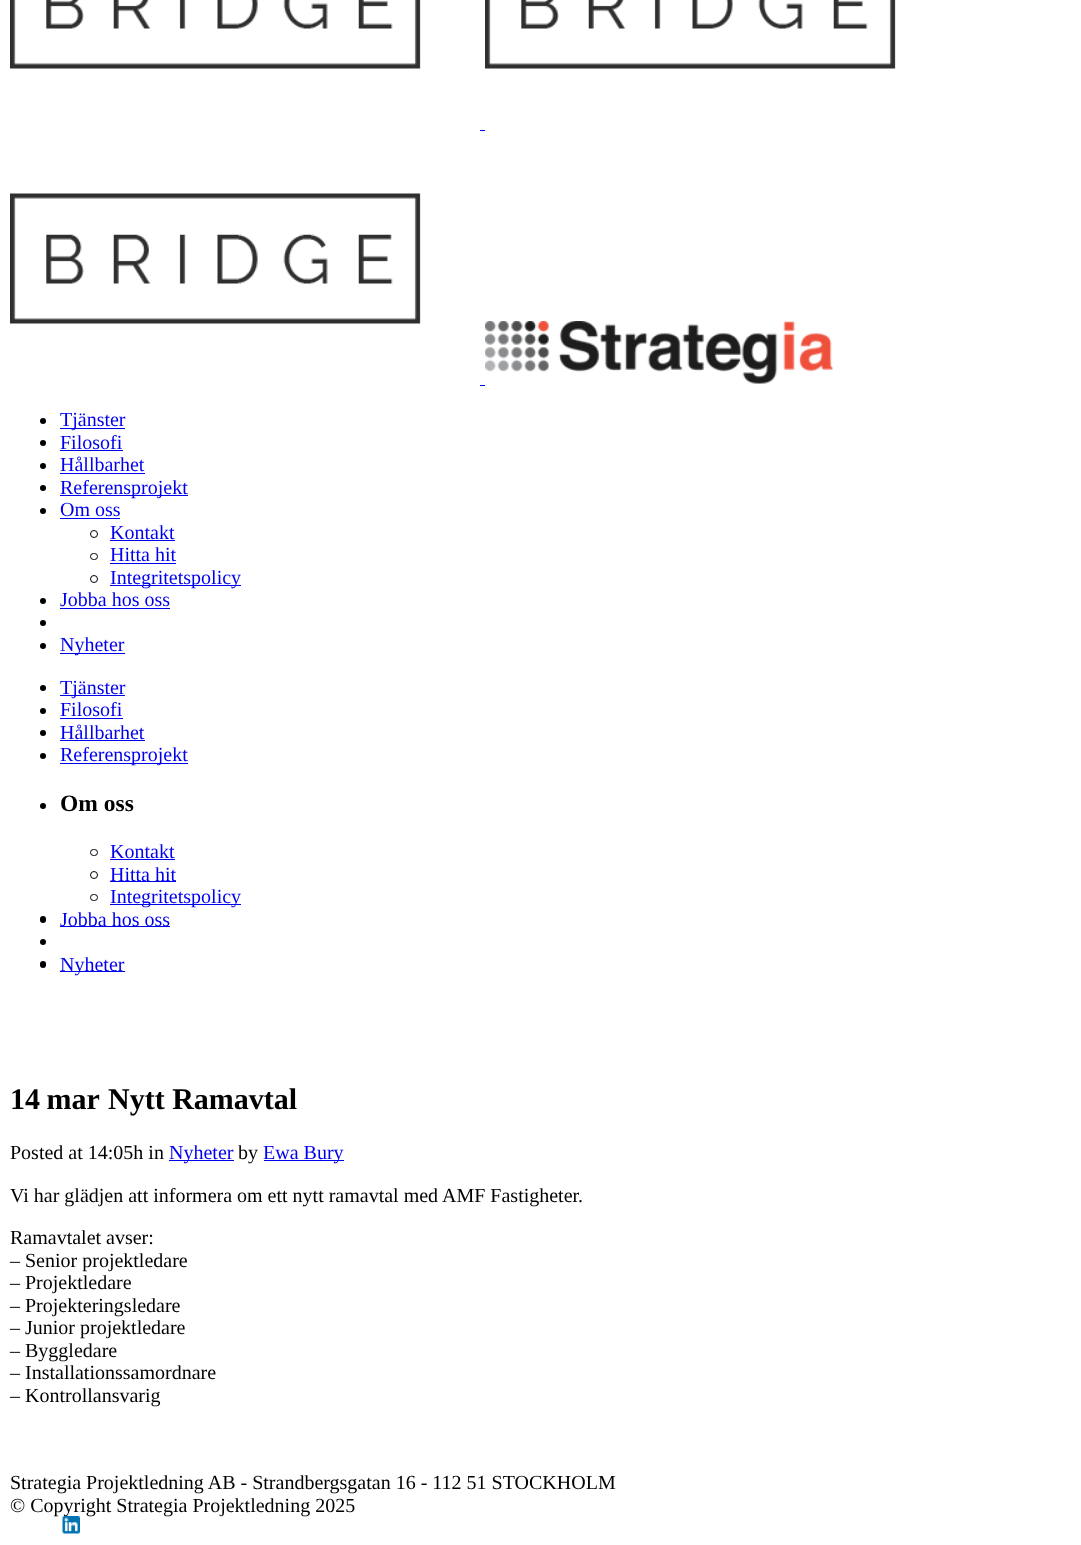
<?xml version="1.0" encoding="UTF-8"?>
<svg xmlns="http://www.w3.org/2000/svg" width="1081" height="1545">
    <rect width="100%" height="100%" fill="#FFFFFF"/>
    <image x="10" y="0" width="411" height="69" href="img_01.png"/>
    <image x="485" y="0" width="411" height="69" href="img_02.png"/>
    <rect x="480" y="130" width="5" height="1" fill="#0000EE"/>
    <image x="10" y="193" width="411" height="131" href="img_03.png"/>
    <image x="485" y="321" width="348" height="63" href="img_04.png"/>
    <rect x="480" y="385" width="5" height="1" fill="#0000EE"/>
    <circle cx="43" cy="421" r="3" fill="#000000"/>
    <rect x="60" y="428" width="65" height="1" fill="#0000EE"/>
    <text x="60" y="426" font-family="Liberation Serif" font-size="20" fill="#0000EE">Tjänster</text>
    <circle cx="43" cy="443" r="3" fill="#000000"/>
    <text x="60" y="449" font-family="Liberation Serif" font-size="20" fill="#0000EE">Filosofi</text>
    <rect x="60" y="450" width="63" height="1" fill="#0000EE"/>
    <circle cx="43" cy="466" r="3" fill="#000000"/>
    <text x="60" y="471" font-family="Liberation Serif" font-size="20" fill="#0000EE">Hållbarhet</text>
    <rect x="60" y="473" width="85" height="1" fill="#0000EE"/>
    <circle cx="43" cy="488" r="3" fill="#000000"/>
    <rect x="60" y="495" width="128" height="1" fill="#0000EE"/>
    <text x="60" y="494" font-family="Liberation Serif" font-size="20" fill="#0000EE">Referensprojekt</text>
    <circle cx="43" cy="511" r="3" fill="#000000"/>
    <text x="60" y="516" font-family="Liberation Serif" font-size="20" fill="#0000EE">Om oss</text>
    <rect x="60" y="518" width="60" height="1" fill="#0000EE"/>
    <circle cx="94" cy="534" r="3.5" fill="none" stroke="#000000"/>
    <text x="110" y="539" font-family="Liberation Serif" font-size="20" fill="#0000EE">Kontakt</text>
    <rect x="110" y="540" width="65" height="1" fill="#0000EE"/>
    <rect x="90.5" y="553.5" width="7" height="6" rx="3" fill="none" stroke="#000000"/>
    <text x="110" y="561" font-family="Liberation Serif" font-size="20" fill="#0000EE">Hitta hit</text>
    <rect x="110" y="563" width="66" height="1" fill="#0000EE"/>
    <circle cx="94" cy="579" r="3.5" fill="none" stroke="#000000"/>
    <rect x="110" y="585" width="131" height="1" fill="#0000EE"/>
    <text x="110" y="584" font-family="Liberation Serif" font-size="20" fill="#0000EE">Integritetspolicy</text>
    <circle cx="43" cy="601" r="3" fill="#000000"/>
    <text x="60" y="606" font-family="Liberation Serif" font-size="20" fill="#0000EE">Jobba hos oss</text>
    <rect x="60" y="608" width="110" height="1" fill="#0000EE"/>
    <circle cx="43" cy="623" r="3" fill="#000000"/>
    <circle cx="43" cy="646" r="3" fill="#000000"/>
    <rect x="60" y="653" width="65" height="1" fill="#0000EE"/>
    <text x="60" y="651" font-family="Liberation Serif" font-size="20" fill="#0000EE">Nyheter</text>
    <circle cx="43" cy="688" r="3" fill="#000000"/>
    <rect x="60" y="695" width="65" height="1" fill="#0000EE"/>
    <text x="60" y="694" font-family="Liberation Serif" font-size="20" fill="#0000EE">Tjänster</text>
    <circle cx="43" cy="711" r="3" fill="#000000"/>
    <text x="60" y="716" font-family="Liberation Serif" font-size="20" fill="#0000EE">Filosofi</text>
    <rect x="60" y="718" width="63" height="1" fill="#0000EE"/>
    <circle cx="43" cy="733" r="3" fill="#000000"/>
    <text x="60" y="739" font-family="Liberation Serif" font-size="20" fill="#0000EE">Hållbarhet</text>
    <rect x="60" y="740" width="85" height="1" fill="#0000EE"/>
    <circle cx="43" cy="756" r="3" fill="#000000"/>
    <rect x="60" y="763" width="128" height="1" fill="#0000EE"/>
    <text x="60" y="761" font-family="Liberation Serif" font-size="20" fill="#0000EE">Referensprojekt</text>
    <circle cx="43" cy="806" r="3" fill="#000000"/>
    <text x="60" y="811" font-family="Liberation Serif" font-size="23.5" font-weight="700" fill="#000000">Om oss</text>
    <rect x="90.5" y="849.5" width="7" height="6" rx="3" fill="none" stroke="#000000"/>
    <text x="110" y="858" font-family="Liberation Serif" font-size="20" fill="#0000EE">Kontakt</text>
    <rect x="110" y="859" width="65" height="1" fill="#0000EE"/>
    <circle cx="94" cy="875" r="3.5" fill="none" stroke="#000000"/>
    <rect x="110" y="881" width="66" height="1" fill="#0000EE"/>
    <text x="110" y="881" font-family="Liberation Serif" font-size="20" fill="#0000EE">Hitta hit</text>
    <rect x="90.5" y="894.5" width="7" height="6" rx="3" fill="none" stroke="#000000"/>
    <rect x="110" y="904" width="131" height="1" fill="#0000EE"/>
    <text x="110" y="903" font-family="Liberation Serif" font-size="20" fill="#0000EE">Integritetspolicy</text>
    <rect x="40" y="916" width="6" height="7" rx="3" fill="#000000"/>
    <rect x="60" y="926" width="110" height="1" fill="#0000EE"/>
    <text x="60" y="926" font-family="Liberation Serif" font-size="20" fill="#0000EE">Jobba hos oss</text>
    <circle cx="43" cy="942" r="3" fill="#000000"/>
    <rect x="40" y="961" width="6" height="7" rx="3" fill="#000000"/>
    <rect x="60" y="971" width="65" height="1" fill="#0000EE"/>
    <text x="60" y="971" font-family="Liberation Serif" font-size="20" fill="#0000EE">Nyheter</text>
    <text x="10" y="1109" word-spacing="-1" font-family="Liberation Serif" font-size="30" font-weight="700" fill="#000000">14 mar</text>
    <text x="108" y="1109" font-family="Liberation Serif" font-size="30" font-weight="700" fill="#000000">Nytt Ramavtal</text>
    <text x="10" y="1159" font-family="Liberation Serif" font-size="20" fill="#000000">Posted at 14:05h in</text>
    <rect x="169" y="1160" width="65" height="1" fill="#0000EE"/>
    <text x="169" y="1159" font-family="Liberation Serif" font-size="20" fill="#0000EE">Nyheter</text>
    <text x="238" y="1159" font-family="Liberation Serif" font-size="20" fill="#000000">by</text>
    <rect x="264" y="1160" width="80" height="1" fill="#0000EE"/>
    <text x="263" y="1159" font-family="Liberation Serif" font-size="20" fill="#0000EE">Ewa Bury</text>
    <text x="10" y="1202" font-family="Liberation Serif" font-size="20" fill="#000000">Vi har glädjen att informera om ett nytt ramavtal med AMF Fastigheter.</text>
    <text font-family="Liberation Serif" font-size="20" fill="#000000">
        <tspan x="10" y="1244">Ramavtalet avser:</tspan>
        <tspan x="10" y="1267">– Senior projektledare</tspan>
        <tspan x="10" y="1289">– Projektledare</tspan>
        <tspan x="10" y="1312">– Projekteringsledare</tspan>
        <tspan x="10" y="1334">– Junior projektledare</tspan>
        <tspan x="10" y="1357">– Byggledare</tspan>
        <tspan x="10" y="1379">– Installationssamordnare</tspan>
        <tspan x="10" y="1402">– Kontrollansvarig</tspan>
    </text>
    <text font-family="Liberation Serif" font-size="20" fill="#000000">
        <tspan x="10" y="1489">Strategia Projektledning AB - Strandbergsgatan 16 - 112 51 STOCKHOLM</tspan>
        <tspan x="10" y="1512">© Copyright Strategia Projektledning 2025</tspan>
    </text>
    <image x="62" y="1516" width="18" height="18" href="img_05.png"/>
</svg>
